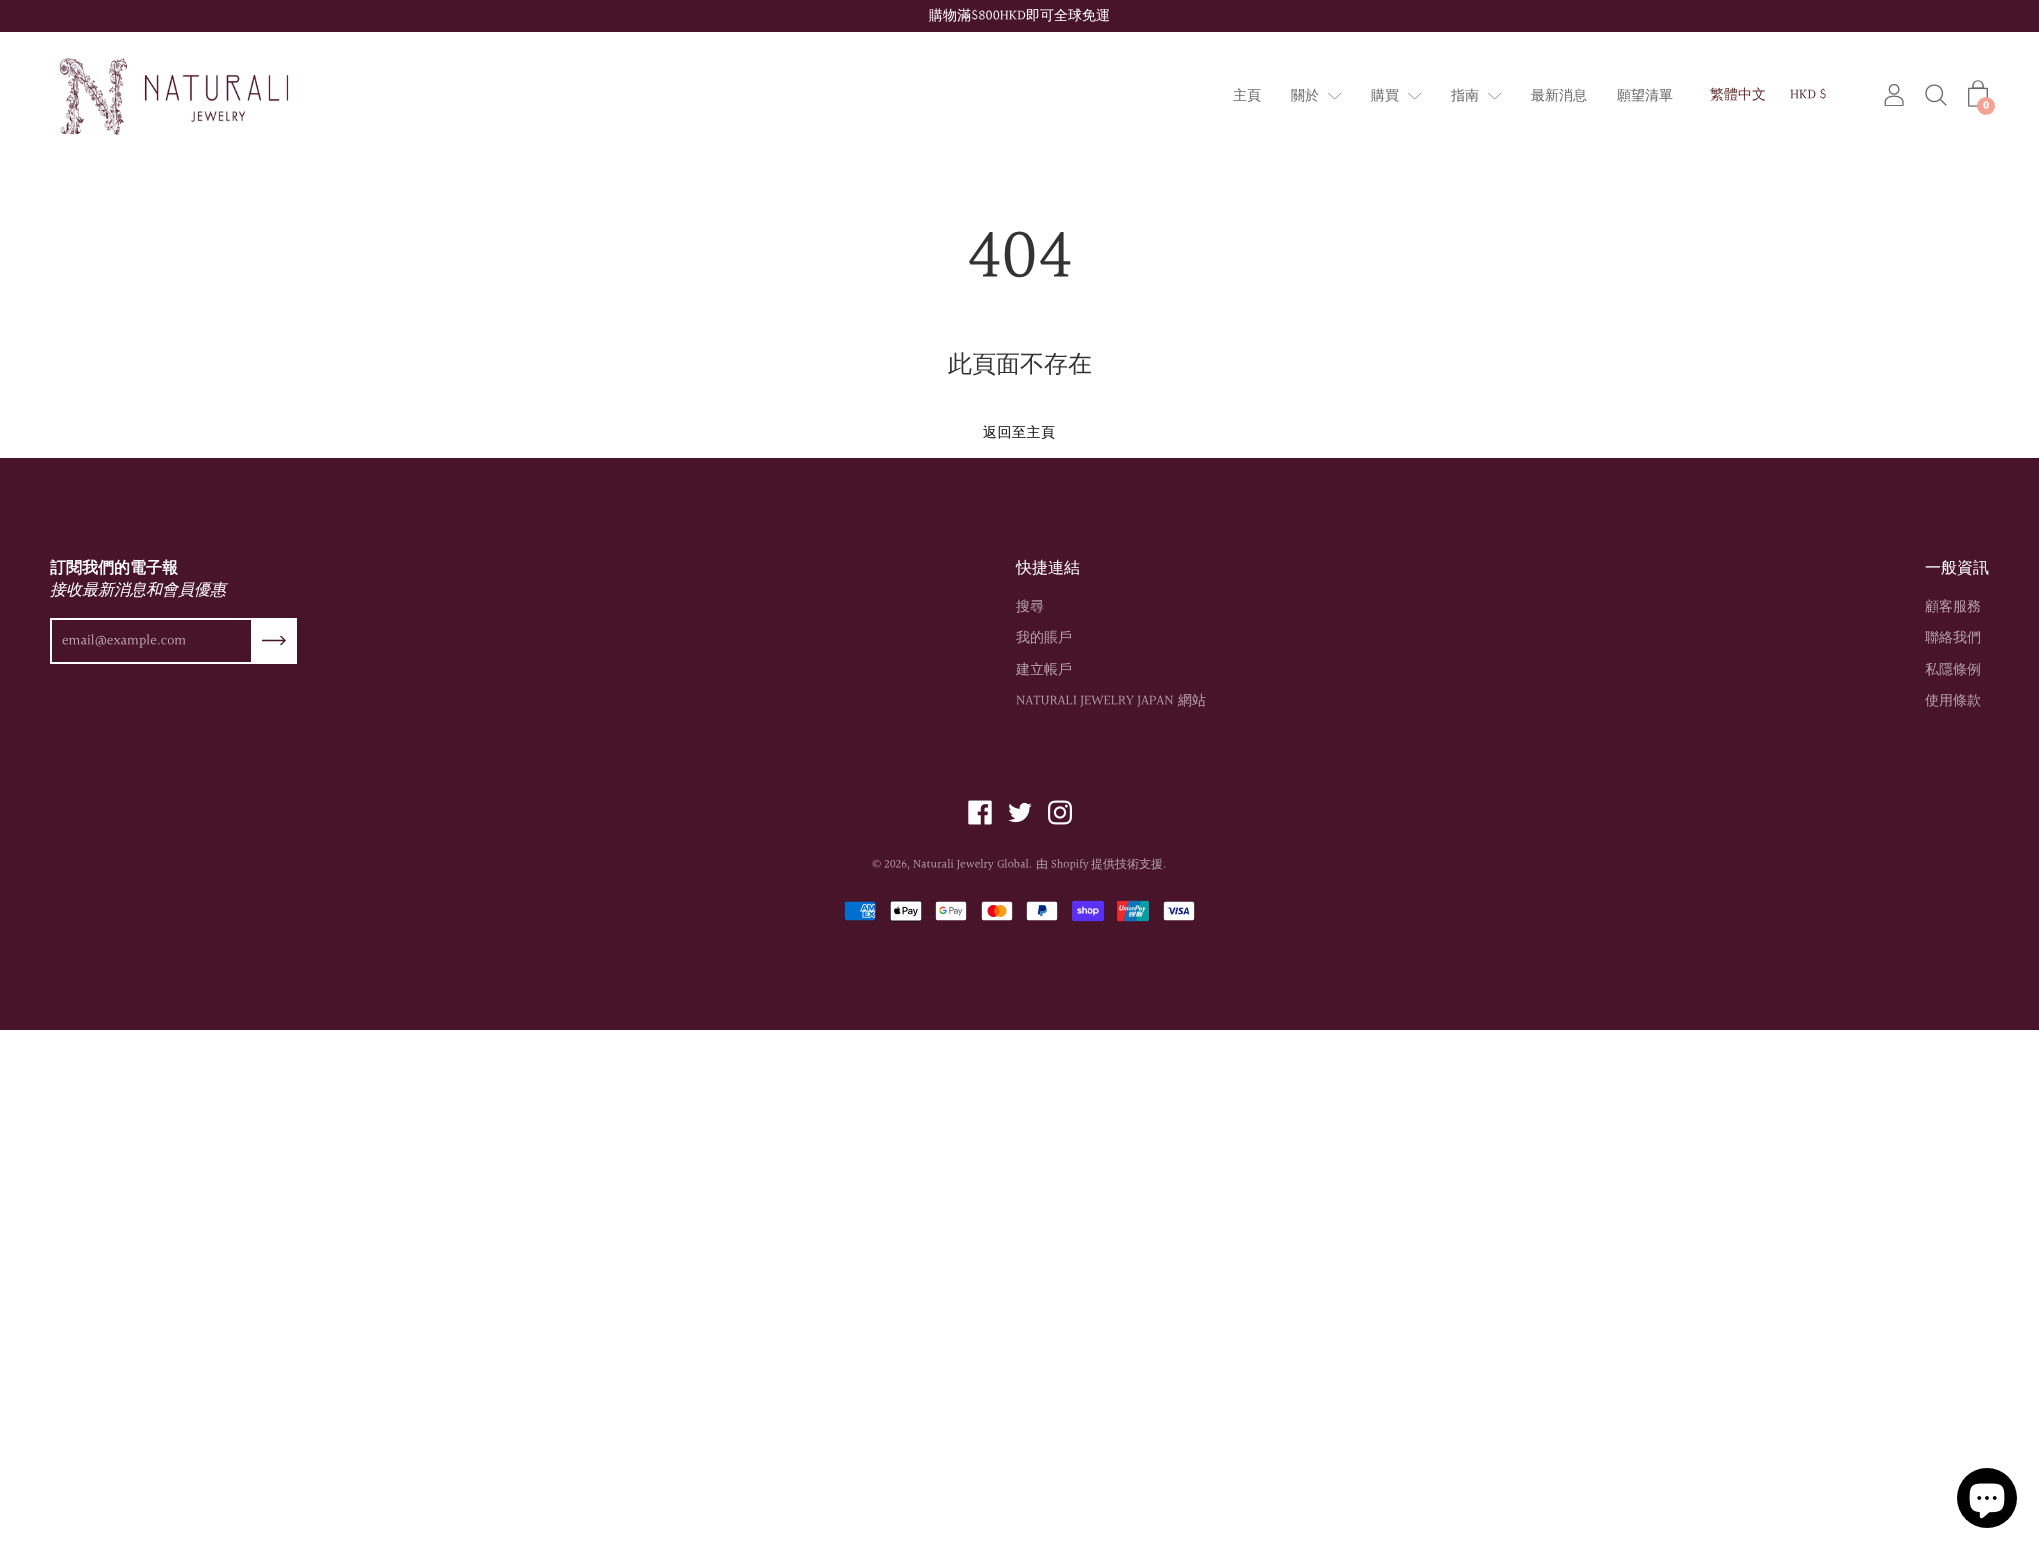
<?xml version="1.0" encoding="UTF-8"?>
<svg xmlns="http://www.w3.org/2000/svg" width="2039" height="1549">
    <rect width="100%" height="100%" fill="#FFFFFF"/>
    <rect x="0" y="0" width="2039" height="32" fill="#481429"/>
    <text x="929" y="20" font-family="WenQuanYi Zen Hei" font-size="14" font-weight="500" fill="#FFFFFF">購物滿</text>
    <text x="971" y="20" font-family="Halant" font-size="14" fill="#FFFFFF">$800HKD</text>
    <text x="1026" y="20" font-family="WenQuanYi Zen Hei" font-size="14" font-weight="500" fill="#FFFFFF">即可全球免運</text>
    <image x="59" y="58" width="230" height="77" href="img_01.png"/>
    <text x="1233" y="100" font-family="WenQuanYi Zen Hei" font-size="14" font-weight="500" fill="#666666">主頁</text>
    <text x="1291" y="100" font-family="WenQuanYi Zen Hei" font-size="14" font-weight="500" fill="#666666">關於</text>
    <image x="1328" y="93" width="14" height="6" href="img_02.png"/>
    <text x="1371" y="100" font-family="WenQuanYi Zen Hei" font-size="14" font-weight="500" fill="#666666">購買</text>
    <image x="1408" y="93" width="14" height="6" href="img_02.png"/>
    <text x="1451" y="100" font-family="WenQuanYi Zen Hei" font-size="14" font-weight="500" fill="#666666">指南</text>
    <image x="1488" y="93" width="14" height="6" href="img_02.png"/>
    <text x="1531" y="100" font-family="WenQuanYi Zen Hei" font-size="14" font-weight="500" fill="#666666">最新消息</text>
    <text x="1617" y="100" font-family="WenQuanYi Zen Hei" font-size="14" font-weight="500" fill="#666666">願望清單</text>
    <text x="1710" y="99" font-family="WenQuanYi Zen Hei" font-size="14" font-weight="500" fill="#622B2B">繁體中文</text>
    <text x="1790" y="99" font-family="Halant" font-size="14" fill="#481429">HKD $</text>
    <image x="1884" y="84" width="20" height="22" href="img_03.png"/>
    <image x="1925" y="84" width="22" height="22" href="img_04.png"/>
    <image x="1968" y="80" width="20" height="27" href="img_05.png"/>
    <circle cx="1986" cy="106" r="9" fill="#F3A293"/>
    <text x="1983" y="109" font-family="Halant" font-size="11" font-weight="700" fill="#FFFFFF">0</text>
    <text x="967" y="280" font-family="Halant" font-size="72" fill="#333333">404</text>
    <text x="948" y="372" font-family="WenQuanYi Zen Hei" font-size="24" font-weight="500" fill="#333333">此頁面不存在</text>
    <text x="983" y="437" font-family="WenQuanYi Zen Hei" font-size="14" font-weight="500" letter-spacing="0.5" fill="#000000">返回至主頁</text>
    <rect x="0" y="458" width="2039" height="572" fill="#481429"/>
    <text x="50" y="573" font-family="WenQuanYi Zen Hei" font-size="16" font-weight="700" fill="#FFFFFF">訂閱我們的電子報</text>
    <text x="50" y="595" font-family="WenQuanYi Zen Hei" font-size="16" font-weight="500" font-style="italic" fill="#FFFFFF">接收最新消息和會員優惠</text>
    <rect x="51" y="619" width="201" height="44" fill="none" stroke="#FFFFFF" stroke-width="2"/>
    <text x="62" y="645" font-family="Halant" font-size="14" fill="#BFADB4">email@example.com</text>
    <rect x="253" y="618" width="44" height="46" fill="#FFFFFF"/>
    <image x="262" y="636" width="24" height="9" href="img_06.png"/>
    <text x="1016" y="573" font-family="WenQuanYi Zen Hei" font-size="16" font-weight="500" fill="#FFFFFF">快捷連結</text>
    <text x="1016" y="611" font-family="WenQuanYi Zen Hei" font-size="14" font-weight="500" fill="#B6A1A9">搜尋</text>
    <text x="1016" y="642" font-family="WenQuanYi Zen Hei" font-size="14" font-weight="500" fill="#B6A1A9">我的賬戶</text>
    <text x="1016" y="674" font-family="WenQuanYi Zen Hei" font-size="14" font-weight="500" fill="#B6A1A9">建立帳戶</text>
    <text x="1016" y="705" font-family="Halant" font-size="14" fill="#B6A1A9">NATURALI JEWELRY JAPAN</text>
    <text x="1178" y="705" font-family="WenQuanYi Zen Hei" font-size="14" font-weight="500" fill="#B6A1A9">網站</text>
    <text x="1925" y="573" font-family="WenQuanYi Zen Hei" font-size="16" font-weight="500" fill="#FFFFFF">一般資訊</text>
    <text x="1925" y="611" font-family="WenQuanYi Zen Hei" font-size="14" font-weight="500" fill="#B6A1A9">顧客服務</text>
    <text x="1925" y="642" font-family="WenQuanYi Zen Hei" font-size="14" font-weight="500" fill="#B6A1A9">聯絡我們</text>
    <text x="1925" y="674" font-family="WenQuanYi Zen Hei" font-size="14" font-weight="500" fill="#B6A1A9">私隱條例</text>
    <text x="1925" y="705" font-family="WenQuanYi Zen Hei" font-size="14" font-weight="500" fill="#B6A1A9">使用條款</text>
    <image x="968" y="800" width="24" height="25" href="img_07.png"/>
    <image x="1008" y="802" width="24" height="21" href="img_08.png"/>
    <image x="1048" y="800" width="24" height="25" href="img_09.png"/>
    <text x="872" y="868" font-family="Halant" font-size="12" fill="#B6A1A9">© 2026, Naturali Jewelry Global.</text>
    <text x="1036" y="868" font-family="WenQuanYi Zen Hei" font-size="12" font-weight="500" fill="#B6A1A9">由</text>
    <text x="1051" y="868" font-family="Halant" font-size="12" fill="#B6A1A9">Shopify</text>
    <text x="1091" y="868" font-family="WenQuanYi Zen Hei" font-size="12" font-weight="500" fill="#B6A1A9">提供技術支援</text>
    <text x="1163" y="868" font-family="Halant" font-size="12" fill="#B6A1A9">.</text>
    <image x="844" y="901" width="32" height="20" href="img_10.png"/>
    <image x="890" y="900" width="32" height="22" href="img_11.png"/>
    <image x="935" y="901" width="32" height="20" href="img_12.png"/>
    <image x="981" y="901" width="32" height="20" href="img_13.png"/>
    <image x="1026" y="901" width="32" height="20" href="img_14.png"/>
    <image x="1072" y="900" width="32" height="22" href="img_15.png"/>
    <image x="1117" y="900" width="32" height="22" href="img_16.png"/>
    <image x="1163" y="901" width="32" height="20" href="img_17.png"/>
    <circle cx="1987" cy="1498" r="30" fill="#000000"/>
    <image x="1969" y="1483" width="36" height="36" href="img_18.png"/>
</svg>
